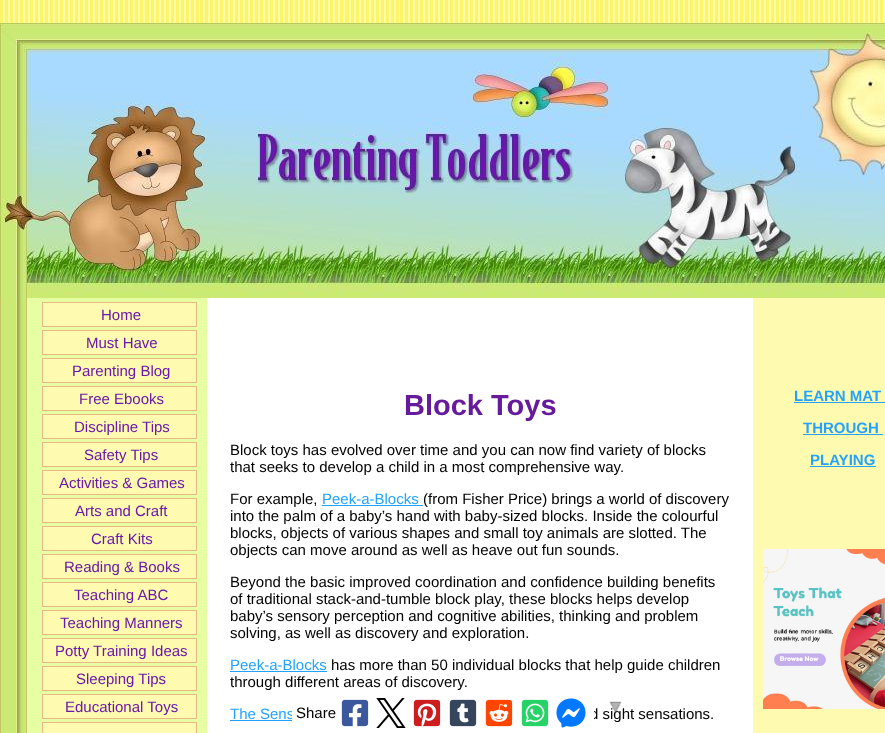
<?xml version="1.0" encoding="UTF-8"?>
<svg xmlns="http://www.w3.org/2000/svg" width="885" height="733">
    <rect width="100%" height="100%" fill="#FFFFFF"/>
    <image x="0" y="0" width="885" height="23" href="img_01.png"/>
    <image x="0" y="298" width="753" height="435" href="img_02.png"/>
    <image x="0" y="23" width="885" height="275" href="img_03.png"/>
    <rect x="27" y="298" width="180" height="435" fill="#E6FFA3"/>
    <rect x="42.5" y="302.5" width="154" height="24" fill="#FEFBB0" stroke="#EBB785"/>
    <text x="101" y="320" font-family="Liberation Sans" font-size="15" fill="#6B18AB">Home</text>
    <rect x="42.5" y="330.5" width="154" height="24" fill="#FEFBB0" stroke="#EBB785"/>
    <text x="86" y="348" font-family="Liberation Sans" font-size="15" fill="#6B18AB">Must Have</text>
    <rect x="42.5" y="358.5" width="154" height="24" fill="#FEFBB0" stroke="#EBB785"/>
    <text x="72" y="376" font-family="Liberation Sans" font-size="15" fill="#6B18AB">Parenting Blog</text>
    <rect x="42.5" y="386.5" width="154" height="24" fill="#FEFBB0" stroke="#EBB785"/>
    <text x="79" y="404" font-family="Liberation Sans" font-size="15" fill="#6B18AB">Free Ebooks</text>
    <rect x="42.5" y="414.5" width="154" height="24" fill="#FEFBB0" stroke="#EBB785"/>
    <text x="74" y="432" font-family="Liberation Sans" font-size="15" fill="#6B18AB">Discipline Tips</text>
    <rect x="42.5" y="442.5" width="154" height="24" fill="#FEFBB0" stroke="#EBB785"/>
    <text x="84" y="460" font-family="Liberation Sans" font-size="15" fill="#6B18AB">Safety Tips</text>
    <rect x="42.5" y="470.5" width="154" height="24" fill="#FEFBB0" stroke="#EBB785"/>
    <text x="59" y="488" font-family="Liberation Sans" font-size="15" fill="#6B18AB">Activities &amp; Games</text>
    <rect x="42.5" y="498.5" width="154" height="24" fill="#FEFBB0" stroke="#EBB785"/>
    <text x="75" y="516" font-family="Liberation Sans" font-size="15" fill="#6B18AB">Arts and Craft</text>
    <rect x="42.5" y="526.5" width="154" height="24" fill="#FEFBB0" stroke="#EBB785"/>
    <text x="91" y="544" font-family="Liberation Sans" font-size="15" fill="#6B18AB">Craft Kits</text>
    <rect x="42.5" y="554.5" width="154" height="24" fill="#FEFBB0" stroke="#EBB785"/>
    <text x="64" y="572" font-family="Liberation Sans" font-size="15" fill="#6B18AB">Reading &amp; Books</text>
    <rect x="42.5" y="582.5" width="154" height="24" fill="#FEFBB0" stroke="#EBB785"/>
    <text x="74" y="600" font-family="Liberation Sans" font-size="15" fill="#6B18AB">Teaching ABC</text>
    <rect x="42.5" y="610.5" width="154" height="24" fill="#FEFBB0" stroke="#EBB785"/>
    <text x="60" y="628" font-family="Liberation Sans" font-size="15" fill="#6B18AB">Teaching Manners</text>
    <rect x="42.5" y="638.5" width="154" height="24" fill="#FEFBB0" stroke="#EBB785"/>
    <text x="55" y="656" font-family="Liberation Sans" font-size="15" fill="#6B18AB">Potty Training Ideas</text>
    <rect x="42.5" y="666.5" width="154" height="24" fill="#FEFBB0" stroke="#EBB785"/>
    <text x="76" y="684" font-family="Liberation Sans" font-size="15" fill="#6B18AB">Sleeping Tips</text>
    <rect x="42.5" y="694.5" width="154" height="24" fill="#FEFBB0" stroke="#EBB785"/>
    <text x="65" y="712" font-family="Liberation Sans" font-size="15" fill="#6B18AB">Educational Toys</text>
    <rect x="42.5" y="722.5" width="154" height="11" fill="#FEFBB0" stroke="#EBB785"/>
    <text x="404" y="415" font-family="Liberation Sans" font-size="29" font-weight="700" fill="#661A9C">Block Toys</text>
    <text font-family="Liberation Sans" font-size="15" fill="#000000">
        <tspan x="230" y="455">Block toys has evolved over time and you can now find variety of blocks</tspan>
        <tspan x="230" y="472">that seeks to develop a child in a most comprehensive way.</tspan>
    </text>
    <text x="230" y="504" font-family="Liberation Sans" font-size="15" fill="#000000">For example,</text>
    <text x="322" y="504" font-family="Liberation Sans" font-size="15" fill="#23A3FF">Peek-a-Blocks</text>
    <rect x="322" y="505" width="101" height="1" fill="#23A3FF"/>
    <text x="423" y="504" font-family="Liberation Sans" font-size="15" fill="#000000">(from Fisher Price) brings a world of discovery</text>
    <text font-family="Liberation Sans" font-size="15" fill="#000000">
        <tspan x="230" y="521">into the palm of a baby’s hand with baby-sized blocks. Inside the colourful</tspan>
        <tspan x="230" y="538">blocks, objects of various shapes and small toy animals are slotted. The</tspan>
        <tspan x="230" y="555">objects can move around as well as heave out fun sounds.</tspan>
    </text>
    <text font-family="Liberation Sans" font-size="15" fill="#000000">
        <tspan x="230" y="587">Beyond the basic improved coordination and confidence building benefits</tspan>
        <tspan x="230" y="604">of traditional stack-and-tumble block play, these blocks helps develop</tspan>
        <tspan x="230" y="621">baby’s sensory perception and cognitive abilities, thinking and problem</tspan>
        <tspan x="230" y="638">solving, as well as discovery and exploration.</tspan>
    </text>
    <text x="230" y="670" font-family="Liberation Sans" font-size="15" fill="#23A3FF">Peek-a-Blocks</text>
    <rect x="230" y="671" width="97" height="1" fill="#23A3FF"/>
    <text x="331" y="670" font-family="Liberation Sans" font-size="15" fill="#000000">has more than 50 individual blocks that help guide children</text>
    <text x="230" y="687" font-family="Liberation Sans" font-size="15" fill="#000000">through different areas of discovery.</text>
    <text x="230" y="719" font-family="Liberation Sans" font-size="15" fill="#23A3FF">The Sens</text>
    <text x="590" y="719" font-family="Liberation Sans" font-size="15" fill="#000000">d sight sensations.</text>
    <path d="M 297 692 H 589 C 592 692 594 694 594 697 V 733 H 292 V 697 C 292 694 294 692 297 692 Z" fill="#FFFFFF"/>
    <text x="296" y="718" font-family="Liberation Sans" font-size="15" fill="#000000">Share</text>
    <image x="341" y="699" width="28" height="28" href="img_04.png"/>
    <image x="376" y="698" width="30" height="30" href="img_05.png"/>
    <image x="413" y="699" width="28" height="28" href="img_06.png"/>
    <image x="449" y="699" width="28" height="28" href="img_07.png"/>
    <image x="485" y="699" width="28" height="28" href="img_08.png"/>
    <image x="521" y="699" width="28" height="28" href="img_09.png"/>
    <image x="556" y="698" width="30" height="30" href="img_10.png"/>
    <image x="609" y="701" width="13" height="12" href="img_11.png"/>
    <rect x="230" y="720" width="62" height="1" fill="#23A3FF"/>
    <rect x="753" y="298" width="132" height="435" fill="#FEFBB0"/>
    <text x="794" y="401" font-family="Liberation Sans" font-size="15" font-weight="700" fill="#23A3FF">LEARN MAT</text>
    <rect x="794" y="402" width="91" height="1" fill="#23A3FF"/>
    <text x="803" y="433" font-family="Liberation Sans" font-size="15" font-weight="700" fill="#23A3FF">THROUGH</text>
    <rect x="803" y="434" width="80" height="1" fill="#23A3FF"/>
    <text x="810" y="465" font-family="Liberation Sans" font-size="15" font-weight="700" fill="#23A3FF">PLAYING</text>
    <rect x="810" y="466" width="66" height="1" fill="#23A3FF"/>
    <image x="763" y="549" width="122" height="160" href="img_12.png"/>
</svg>
